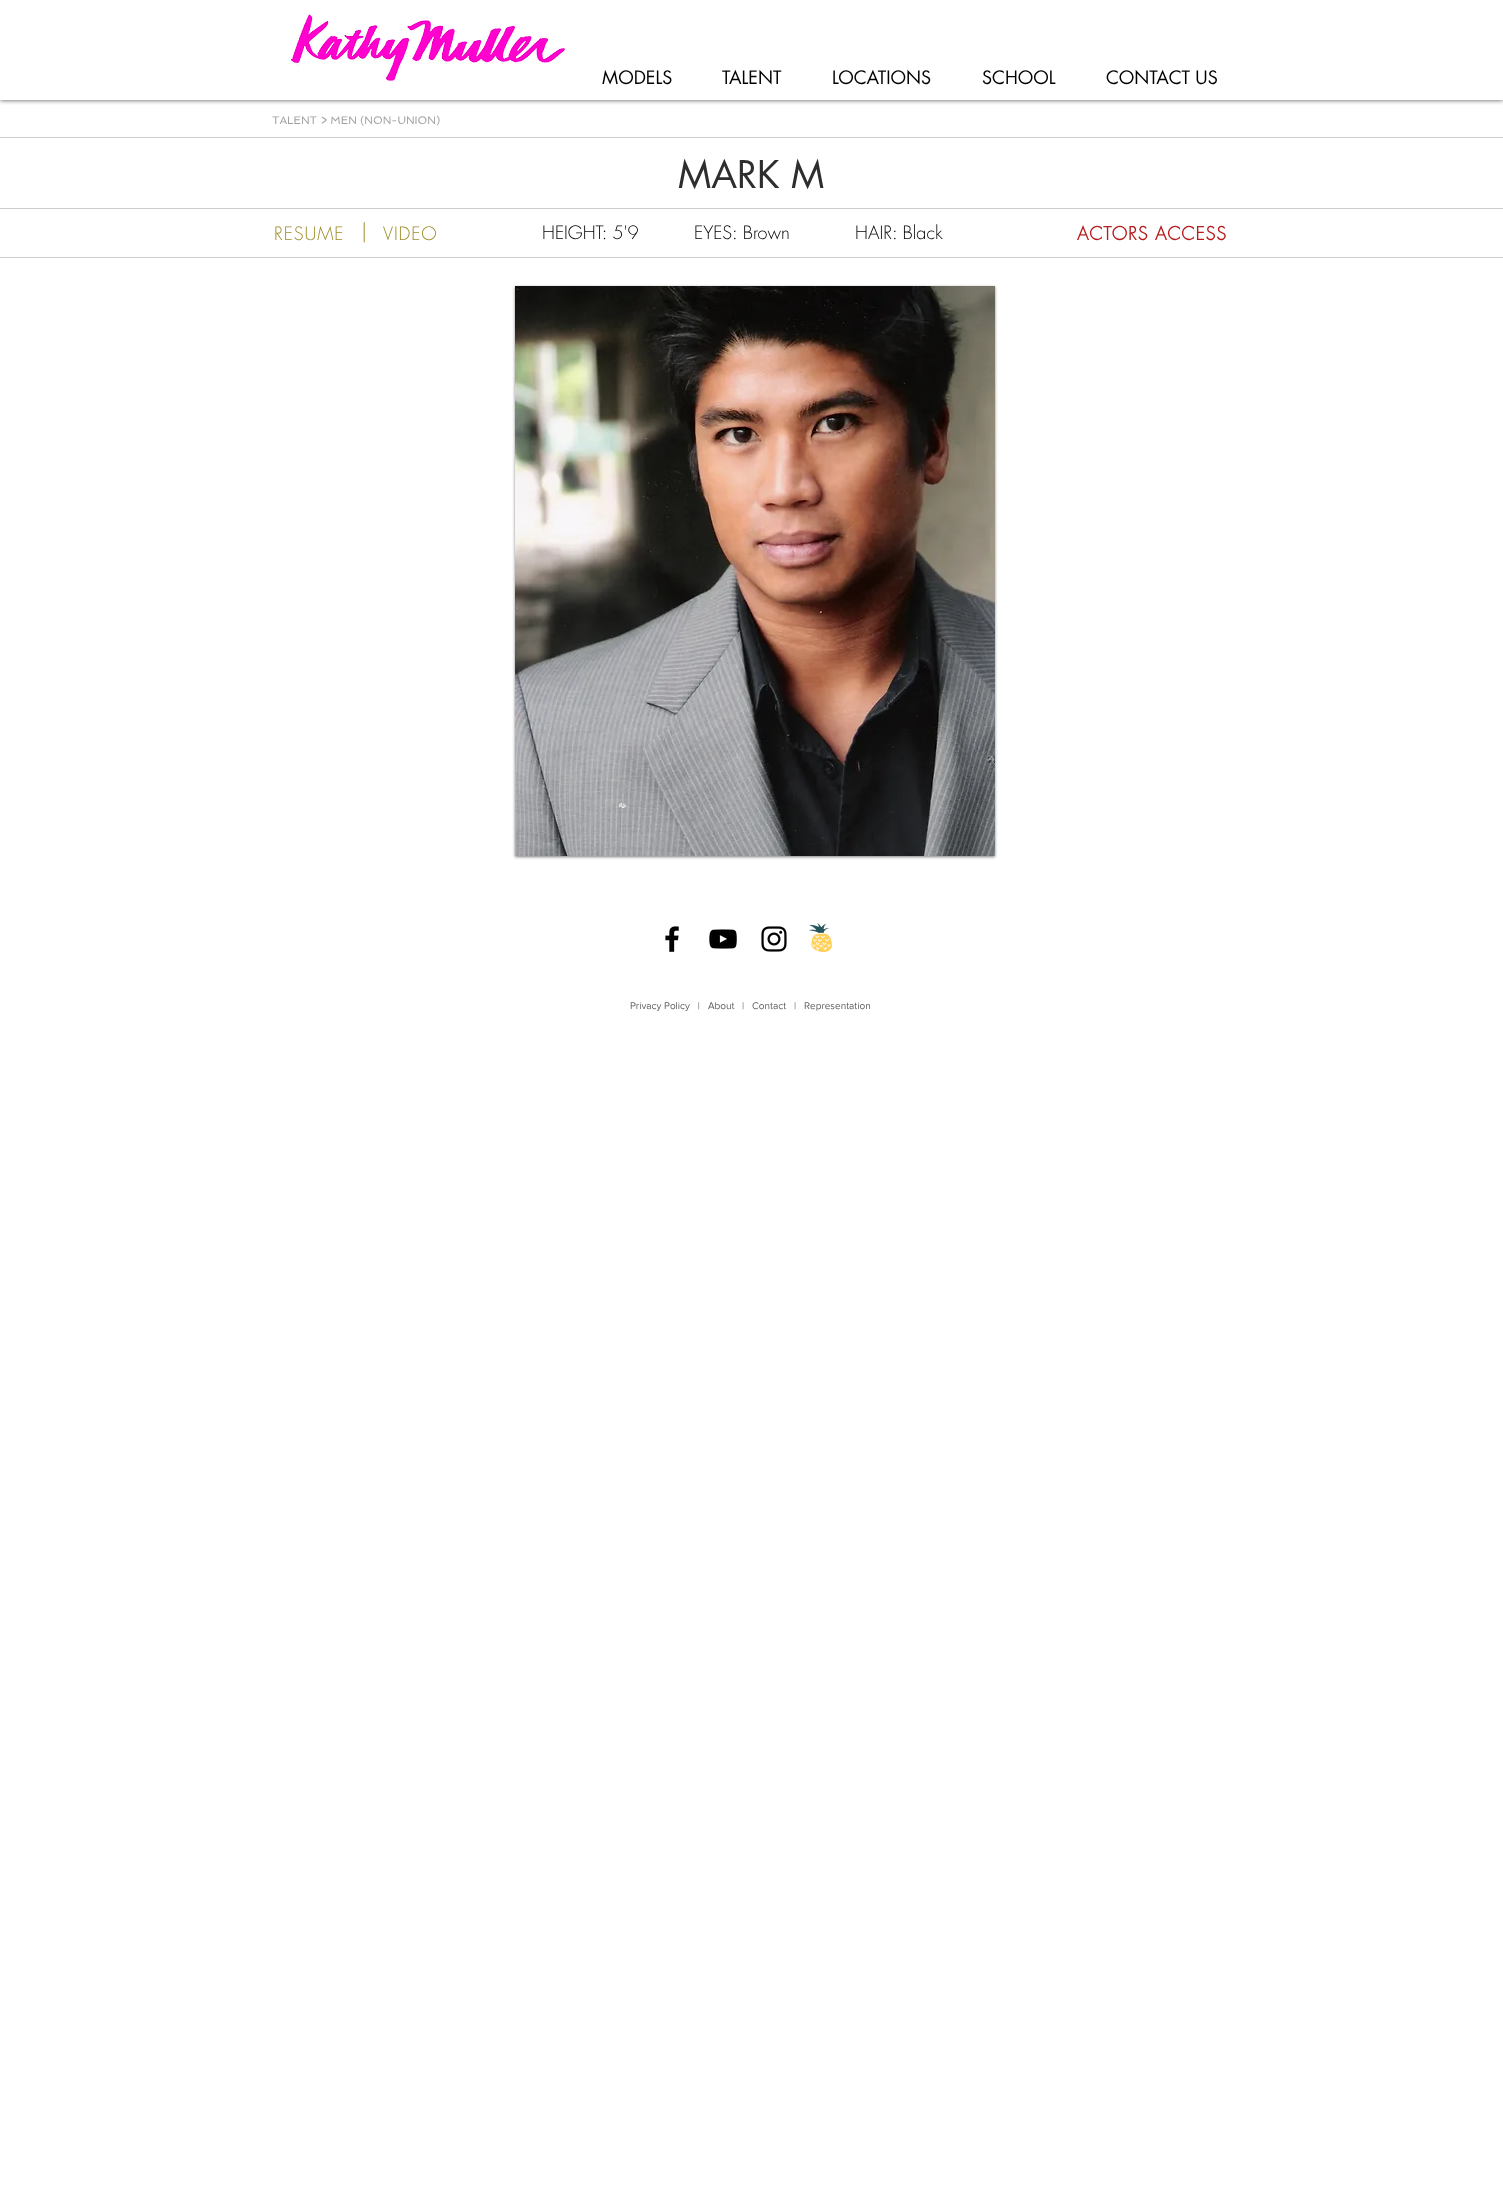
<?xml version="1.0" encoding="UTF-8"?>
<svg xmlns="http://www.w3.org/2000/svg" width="1503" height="2189">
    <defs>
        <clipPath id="clip1"><rect x="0" y="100" width="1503" height="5"/></clipPath>
        <filter id="blur1" x="-50%" y="-200%" width="200%" height="500%"><feGaussianBlur stdDeviation="2.5"/></filter>
        <filter id="blur2" x="-50%" y="-200%" width="200%" height="500%"><feGaussianBlur stdDeviation="1.5"/></filter>
    </defs>
    <rect width="100%" height="100%" fill="#FFFFFF"/>
    <g clip-path="url(#clip1)">
        <rect x="0" y="0" width="1503" height="100" fill="#000000" fill-opacity="0.7" filter="url(#blur1)"/>
    </g>
    <image x="290" y="14" width="277" height="69" href="img_01.png"/>
    <text x="602" y="84" font-family="futura" font-size="18" fill="#000000">MODELS</text>
    <text x="722" y="84" font-family="futura" font-size="18" fill="#000000">TALENT</text>
    <text x="832" y="84" font-family="futura" font-size="18" fill="#000000">LOCATIONS</text>
    <text x="982" y="84" font-family="futura" font-size="18" fill="#000000">SCHOOL</text>
    <text x="1106" y="84" font-family="futura" font-size="18" fill="#000000">CONTACT US</text>
    <text x="272" y="124" font-family="Spinnaker" font-size="11" fill="#A0A09F">TALENT &gt; MEN (NON-UNION)</text>
    <rect x="0" y="137" width="1503" height="1" fill="#CCCCCC"/>
    <text x="678" y="188" font-family="futura" font-size="37" fill="#2F2E2E">MARK M</text>
    <rect x="0" y="208" width="1503" height="1" fill="#CCCCCC"/>
    <text x="274" y="240" font-family="futura" font-size="18" font-weight="300" letter-spacing="0.9" fill="#9E8C28">RESUME</text>
    <text x="361" y="238" font-family="futura" font-size="20" font-weight="300" letter-spacing="1" fill="#9E8C28">|</text>
    <text x="383" y="240" font-family="futura" font-size="18" font-weight="300" letter-spacing="0.9" fill="#9E8C28">VIDEO</text>
    <text x="542" y="239" font-family="futura" font-size="18" font-weight="300" fill="#000000">HEIGHT: 5'9</text>
    <text x="694" y="239" font-family="futura" font-size="18" font-weight="300" fill="#000000">EYES: Brown</text>
    <text x="855" y="239" font-family="futura" font-size="18" font-weight="300" fill="#000000">HAIR: Black</text>
    <text x="1077" y="240" font-family="futura" font-size="18" font-weight="700" letter-spacing="0.9" fill="#B71C1C">ACTORS ACCESS</text>
    <rect x="0" y="257" width="1503" height="1" fill="#CCCCCC"/>
    <rect x="515" y="287" width="480" height="570" fill="#000000" fill-opacity="0.5" filter="url(#blur2)"/>
    <image x="515" y="286" width="480" height="570" href="img_02.png"/>
    <image x="665" y="926" width="14" height="26" href="img_03.png"/>
    <image x="709" y="929" width="28" height="20" href="img_04.png"/>
    <image x="761" y="926" width="26" height="26" href="img_05.png"/>
    <image x="809" y="923" width="23" height="29" href="img_06.png"/>
    <text x="630" y="1009" font-family="'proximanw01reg'" font-size="10" fill="#605E5E" xml:space="preserve">Privacy Policy   |</text>
    <text x="708" y="1009" font-family="'proximanw01reg'" font-size="10" fill="#605E5E">About</text>
    <text x="742" y="1009" font-family="'proximanw01reg'" font-size="10" fill="#605E5E">|</text>
    <text x="752" y="1009" font-family="'proximanw01reg'" font-size="10" fill="#605E5E">Contact</text>
    <text x="794" y="1009" font-family="'proximanw01reg'" font-size="10" fill="#605E5E">|</text>
    <text x="804" y="1009" font-family="'proximanw01reg'" font-size="10" fill="#605E5E">Representation</text>
</svg>
